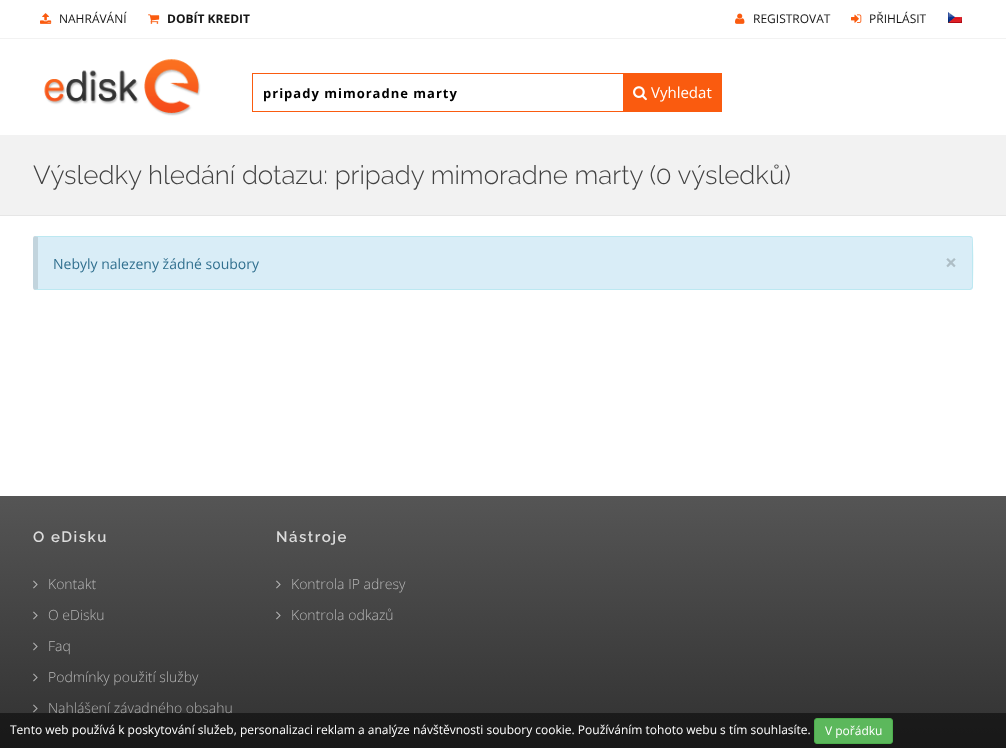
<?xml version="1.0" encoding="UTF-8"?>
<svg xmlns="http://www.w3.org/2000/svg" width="1006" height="748">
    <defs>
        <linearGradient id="g1" gradientUnits="userSpaceOnUse" x1="503" y1="496" x2="503" y2="748"><stop offset="0" stop-color="#555555"/><stop offset="1" stop-color="#313131"/></linearGradient>
    </defs>
    <rect width="100%" height="100%" fill="#FFFFFF"/>
    <rect x="0" y="38" width="1006" height="1" fill="#F2F2F2"/>
    <image x="40" y="13" width="12" height="11" href="img_01.png"/>
    <text x="59" y="23" font-family="Open Sans" font-size="12" fill="#151515">NAHRÁVÁNÍ</text>
    <image x="148" y="14" width="12" height="10" href="img_02.png"/>
    <text x="167" y="23" font-family="Open Sans" font-size="12" font-weight="700" fill="#151515">DOBÍT KREDIT</text>
    <image x="735" y="13" width="10" height="11" href="img_03.png"/>
    <text x="753" y="23" font-family="Open Sans" font-size="12" fill="#151515">REGISTROVAT</text>
    <image x="851" y="14" width="11" height="9" href="img_04.png"/>
    <text x="869" y="23" font-family="Open Sans" font-size="12" fill="#151515">PŘIHLÁSIT</text>
    <image x="948" y="12" width="14" height="11" href="img_05.png"/>
    <image x="44" y="59" width="157" height="57" href="img_06.png"/>
    <rect x="252.5" y="73.5" width="469" height="38" fill="none" stroke="#FA5B0F"/>
    <text x="263" y="98" font-family="Open Sans" font-size="13" font-weight="700" letter-spacing="1" fill="#000000">pripady mimoradne marty</text>
    <rect x="623" y="74" width="98" height="37" fill="#FA5B0F"/>
    <image x="633" y="86" width="14" height="15" href="img_07.png"/>
    <text x="651" y="98" font-family="Open Sans" font-size="15" fill="#FFFFFF">Vyhledat</text>
    <rect x="0" y="135" width="1006" height="80" fill="#F2F2F2"/>
    <rect x="0" y="215" width="1006" height="1" fill="#E6E6E6"/>
    <text x="33" y="184" font-family="Raleway" font-size="26" font-weight="300" fill="#414141">Výsledky hledání dotazu: pripady mimoradne marty (0 výsledků)</text>
    <rect x="33" y="236" width="940" height="54" rx="3" fill="#D9EDF7"/>
    <path d="M 36 236 H 34 L 38 237 H 970 L 971 238 L 972 237 L 970 236 Z" fill="#BCE8F1"/>
    <path d="M 973 287 C 973 281 974 239 972 237 L 971 238 H 972 V 287 L 971 288 L 972 289 Z" fill="#BCE8F1"/>
    <path d="M 36 290 H 970 L 972 289 L 971 288 L 970 289 H 38 L 34 290 Z" fill="#BCE8F1"/>
    <path d="M 38 237 L 34 236 C 33 237 33 238 33 239 V 287 C 33 288 33 289 34 290 L 38 289 Z" fill="#000000" fill-opacity="0.1"/>
    <text x="53" y="269" font-family="Open Sans" font-size="14" fill="#31708F">Nebyly nalezeny žádné soubory</text>
    <text x="945" y="270" font-family="Open Sans" font-size="21" font-weight="700" fill="#AEBEC6">×</text>
    <rect x="0" y="496" width="1006" height="252" fill="url(#g1)"/>
    <text x="33" y="542" font-family="Raleway" font-size="15" font-weight="600" letter-spacing="1.5" fill="#DCDCDC">O eDisku</text>
    <image x="33" y="580" width="5" height="9" href="img_08.png"/>
    <text x="48" y="589" font-family="Open Sans" font-size="14" font-weight="300" fill="#B6B6B6">Kontakt</text>
    <image x="33" y="611" width="5" height="9" href="img_09.png"/>
    <text x="48" y="620" font-family="Open Sans" font-size="14" font-weight="300" fill="#B6B6B6">O eDisku</text>
    <image x="33" y="642" width="5" height="9" href="img_10.png"/>
    <text x="48" y="651" font-family="Open Sans" font-size="14" font-weight="300" fill="#B6B6B6">Faq</text>
    <image x="33" y="673" width="5" height="9" href="img_11.png"/>
    <text x="48" y="682" font-family="Open Sans" font-size="14" font-weight="300" fill="#B6B6B6">Podmínky použití služby</text>
    <image x="33" y="704" width="5" height="9" href="img_12.png"/>
    <text x="48" y="713" font-family="Open Sans" font-size="14" font-weight="300" fill="#AFAFAF">Nahlášení závadného obsahu</text>
    <text x="276" y="542" font-family="Raleway" font-size="15" font-weight="600" letter-spacing="1.5" fill="#DCDCDC">Nástroje</text>
    <image x="276" y="580" width="5" height="9" href="img_08.png"/>
    <text x="291" y="589" font-family="Open Sans" font-size="14" font-weight="300" fill="#B6B6B6">Kontrola IP adresy</text>
    <image x="276" y="611" width="5" height="9" href="img_09.png"/>
    <text x="291" y="620" font-family="Open Sans" font-size="14" font-weight="300" fill="#B6B6B6">Kontrola odkazů</text>
    <rect x="0" y="713" width="1006" height="35" fill="#000000" fill-opacity="0.5"/>
    <text x="10" y="734" font-family="Open Sans" font-size="12" fill="#FFFFFF">Tento web používá k poskytování služeb, personalizaci reklam a analýze návštěvnosti soubory cookie. Používáním tohoto webu s tím souhlasíte.</text>
    <rect x="814.5" y="718.5" width="78" height="25" rx="2.5" fill="#5CB85C" stroke="#4CAE4C"/>
    <text x="825" y="735" font-family="Open Sans" font-size="12" fill="#FFFFFF">V pořádku</text>
</svg>
